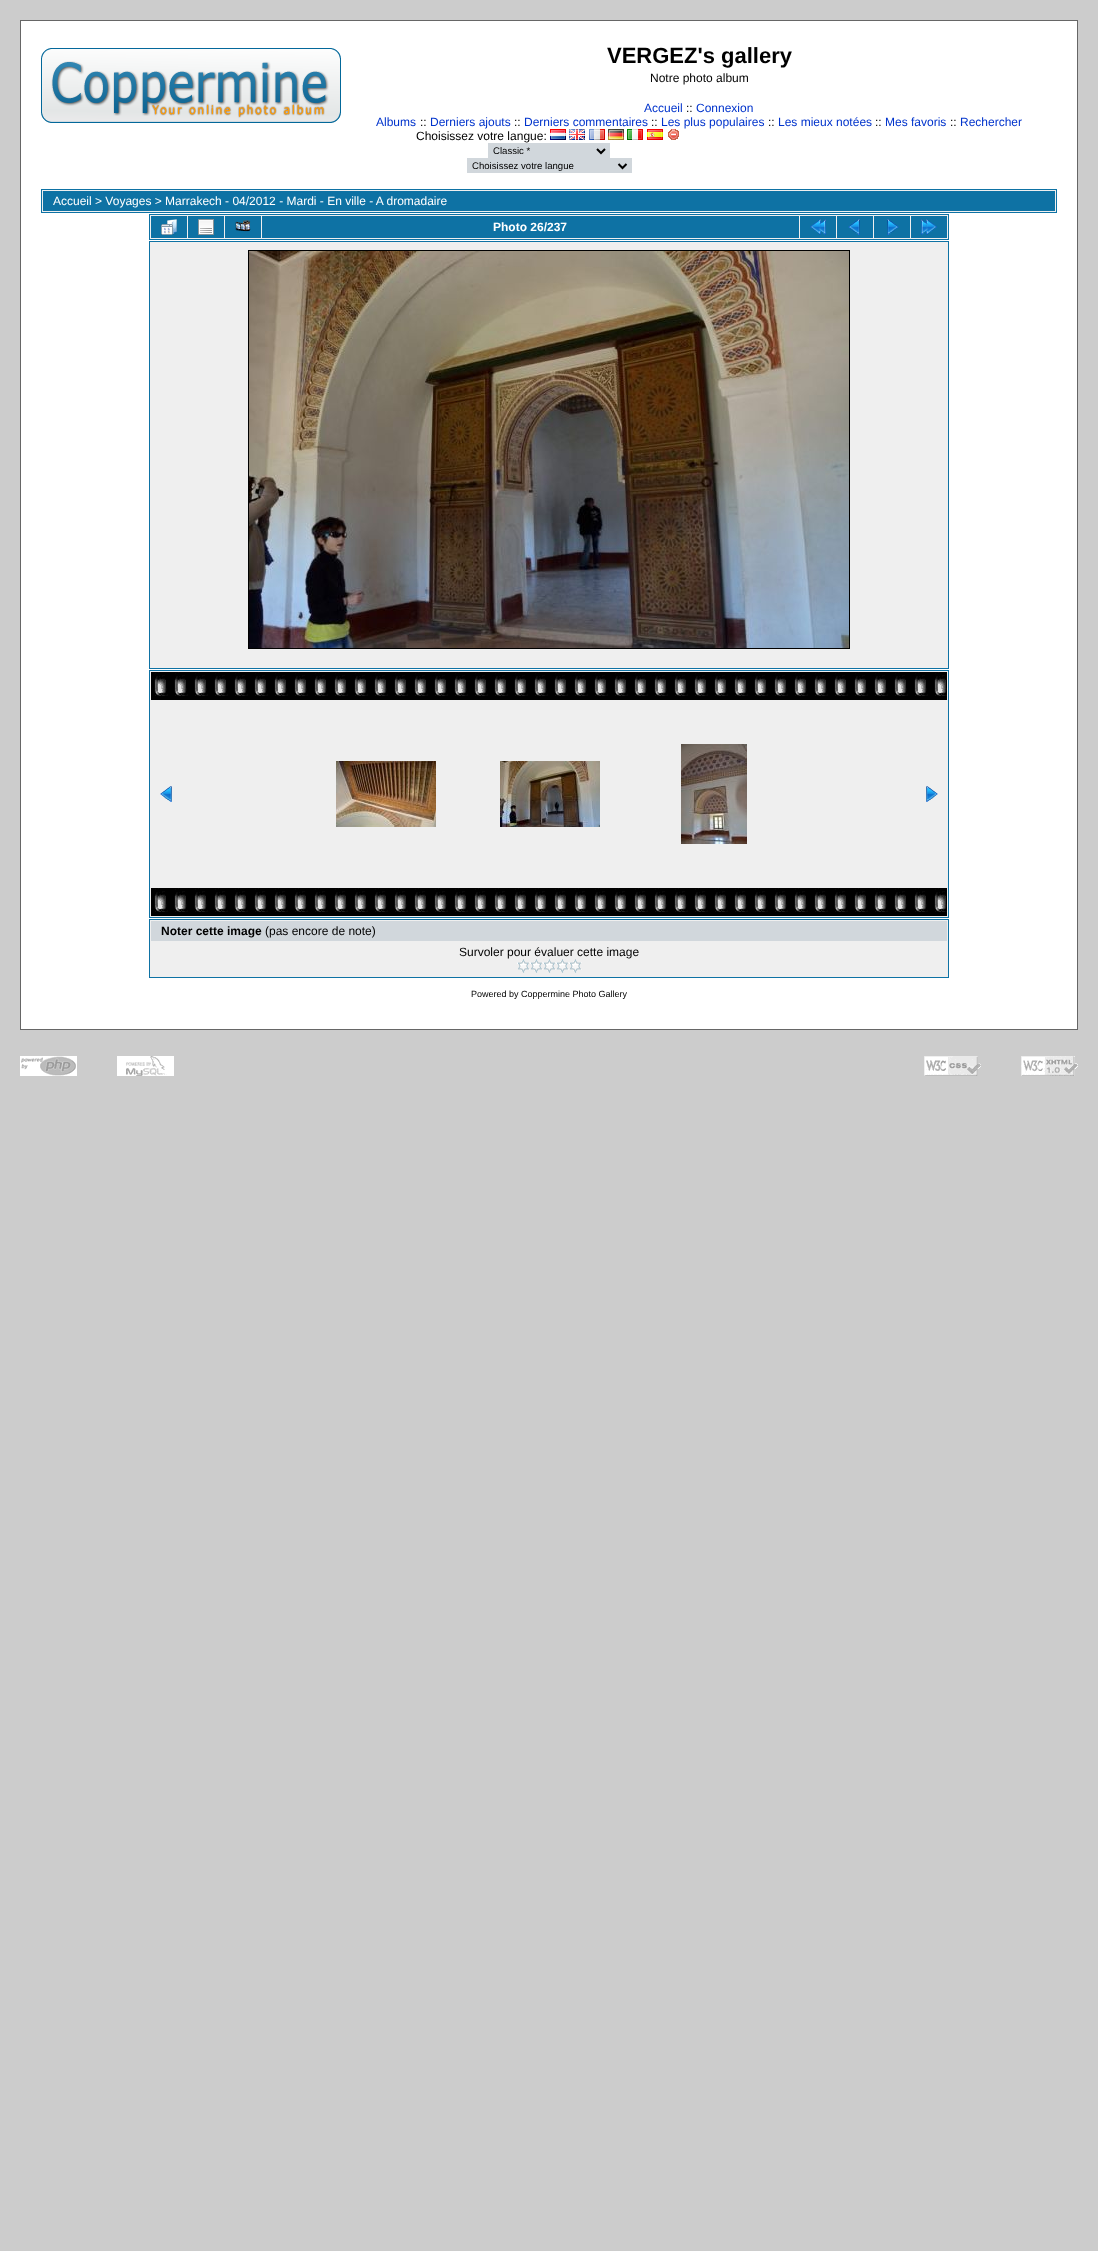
<?xml version="1.0" encoding="UTF-8"?>
<svg xmlns="http://www.w3.org/2000/svg" width="1098" height="2251">
    <rect width="100%" height="100%" fill="#CCCCCC"/>
    <rect x="20.5" y="20.5" width="1057" height="1009" fill="#FFFFFF" stroke="#666666"/>
    <image x="41" y="48" width="300" height="75" href="img_01.png"/>
    <text x="607" y="63" font-family="Liberation Sans" font-size="22" font-weight="700" fill="#000000">VERGEZ's gallery</text>
    <text x="650" y="82" font-family="Liberation Sans" font-size="12" fill="#000000">Notre photo album</text>
    <text x="644" y="112" font-family="Liberation Sans" font-size="12" fill="#0033CC">Accueil</text>
    <text x="686" y="112" font-family="Liberation Sans" font-size="12" fill="#000000">::</text>
    <text x="696" y="112" font-family="Liberation Sans" font-size="12" fill="#0033CC">Connexion</text>
    <text x="376" y="126" font-family="Liberation Sans" font-size="12" fill="#0033CC">Albums</text>
    <text x="420" y="126" font-family="Liberation Sans" font-size="12" fill="#000000">::</text>
    <text x="430" y="126" font-family="Liberation Sans" font-size="12" fill="#0033CC">Derniers ajouts</text>
    <text x="514" y="126" font-family="Liberation Sans" font-size="12" fill="#000000">::</text>
    <text x="524" y="126" font-family="Liberation Sans" font-size="12" fill="#0033CC">Derniers commentaires</text>
    <text x="651" y="126" font-family="Liberation Sans" font-size="12" fill="#000000">::</text>
    <text x="661" y="126" font-family="Liberation Sans" font-size="12" fill="#0033CC">Les plus populaires</text>
    <text x="768" y="126" font-family="Liberation Sans" font-size="12" fill="#000000">::</text>
    <text x="778" y="126" font-family="Liberation Sans" font-size="12" fill="#0033CC">Les mieux notées</text>
    <text x="875" y="126" font-family="Liberation Sans" font-size="12" fill="#000000">::</text>
    <text x="885" y="126" font-family="Liberation Sans" font-size="12" fill="#0033CC">Mes favoris</text>
    <text x="950" y="126" font-family="Liberation Sans" font-size="12" fill="#000000">::</text>
    <text x="960" y="126" font-family="Liberation Sans" font-size="12" fill="#0033CC">Rechercher</text>
    <text x="416" y="140" font-family="Liberation Sans" font-size="12" fill="#000000">Choisissez votre langue:</text>
    <image x="550" y="129" width="16" height="11" href="img_02.png"/>
    <image x="569" y="129" width="16" height="11" href="img_03.png"/>
    <image x="589" y="129" width="16" height="11" href="img_04.png"/>
    <image x="608" y="129" width="16" height="11" href="img_05.png"/>
    <image x="627" y="129" width="16" height="11" href="img_06.png"/>
    <image x="647" y="129" width="16" height="11" href="img_07.png"/>
    <image x="668" y="129" width="11" height="11" href="img_08.png"/>
    <rect x="488" y="143" width="122" height="15" fill="#D1D7DC"/>
    <path d="M 597 149 L 601 153 L 605 149" fill="none" stroke="#000000" stroke-width="2"/>
    <text x="493" y="154" font-family="Liberation Sans" font-size="9.6" fill="#000000">Classic *</text>
    <rect x="467" y="158" width="165" height="15" fill="#D1D7DC"/>
    <path d="M 618.5 164 L 622.5 168 L 626.5 164" fill="none" stroke="#000000" stroke-width="2"/>
    <text x="472" y="169" font-family="Liberation Sans" font-size="9.6" fill="#000000">Choisissez votre langue</text>
    <rect x="41.5" y="189.5" width="1015" height="23" fill="#EFEFEF" stroke="#0E72A4"/>
    <rect x="43" y="191" width="1012" height="20" fill="#0E72A4"/>
    <text x="53" y="205" font-family="Liberation Sans" font-size="12" fill="#FFFFFF">Accueil &gt; Voyages &gt; Marrakech - 04/2012 - Mardi - En ville - A dromadaire</text>
    <rect x="149.5" y="214.5" width="799" height="25" fill="#EFEFEF" stroke="#0E72A4"/>
    <rect x="151" y="216" width="36" height="22" fill="#0E72A4"/>
    <image x="161" y="219" width="16" height="16" href="img_09.png"/>
    <rect x="188" y="216" width="36" height="22" fill="#0E72A4"/>
    <image x="198" y="219" width="16" height="16" href="img_10.png"/>
    <rect x="225" y="216" width="36" height="22" fill="#0E72A4"/>
    <image x="235" y="220" width="16" height="12" href="img_11.png"/>
    <rect x="262" y="216" width="537" height="22" fill="#0E72A4"/>
    <text x="493" y="231" font-family="Liberation Sans" font-size="12" font-weight="700" fill="#FFFFFF">Photo 26/237</text>
    <rect x="800" y="216" width="36" height="22" fill="#0E72A4"/>
    <image x="810" y="219" width="16" height="16" href="img_12.png"/>
    <rect x="837" y="216" width="36" height="22" fill="#0E72A4"/>
    <image x="848" y="219" width="12" height="16" href="img_13.png"/>
    <rect x="874" y="216" width="36" height="22" fill="#0E72A4"/>
    <image x="887" y="219" width="12" height="16" href="img_14.png"/>
    <rect x="911" y="216" width="36" height="22" fill="#0E72A4"/>
    <image x="921" y="219" width="16" height="16" href="img_15.png"/>
    <rect x="149.5" y="241.5" width="799" height="427" fill="#EFEFEF" stroke="#0E72A4"/>
    <rect x="248.5" y="250.5" width="601" height="398" fill="none" stroke="#000000"/>
    <image x="249" y="251" width="600" height="397" href="img_16.png"/>
    <rect x="149.5" y="670.5" width="799" height="247" fill="#EFEFEF" stroke="#0E72A4"/>
    <image x="151" y="672" width="796" height="28" href="img_17.png"/>
    <image x="160" y="786" width="12" height="16" href="img_18.png"/>
    <image x="336" y="761" width="100" height="66" href="img_19.png"/>
    <image x="500" y="761" width="100" height="66" href="img_20.png"/>
    <image x="681" y="744" width="66" height="100" href="img_21.png"/>
    <image x="926" y="786" width="12" height="16" href="img_22.png"/>
    <image x="151" y="888" width="796" height="28" href="img_17.png"/>
    <rect x="149.5" y="919.5" width="799" height="58" fill="#EFEFEF" stroke="#0E72A4"/>
    <rect x="151" y="921" width="796" height="20" fill="#D1D7DC"/>
    <text x="161" y="935" font-family="Liberation Sans" font-size="12" font-weight="700" fill="#000000">Noter cette image</text>
    <text x="265" y="935" font-family="Liberation Sans" font-size="12" fill="#000000">(pas encore de note)</text>
    <text x="459" y="956" font-family="Liberation Sans" font-size="12" fill="#000000">Survoler pour évaluer cette image</text>
    <image x="517" y="959" width="13" height="14" href="img_23.png"/>
    <image x="530" y="959" width="13" height="14" href="img_23.png"/>
    <image x="543" y="959" width="13" height="14" href="img_23.png"/>
    <image x="556" y="959" width="13" height="14" href="img_23.png"/>
    <image x="569" y="959" width="13" height="14" href="img_23.png"/>
    <text x="471" y="997" font-family="Liberation Sans" font-size="9" fill="#000000">Powered by Coppermine Photo Gallery</text>
    <image x="20" y="1056" width="57" height="20" href="img_24.png"/>
    <image x="117" y="1056" width="57" height="20" href="img_25.png"/>
    <image x="924" y="1056" width="57" height="20" href="img_26.png"/>
    <image x="1021" y="1056" width="57" height="20" href="img_27.png"/>
</svg>
